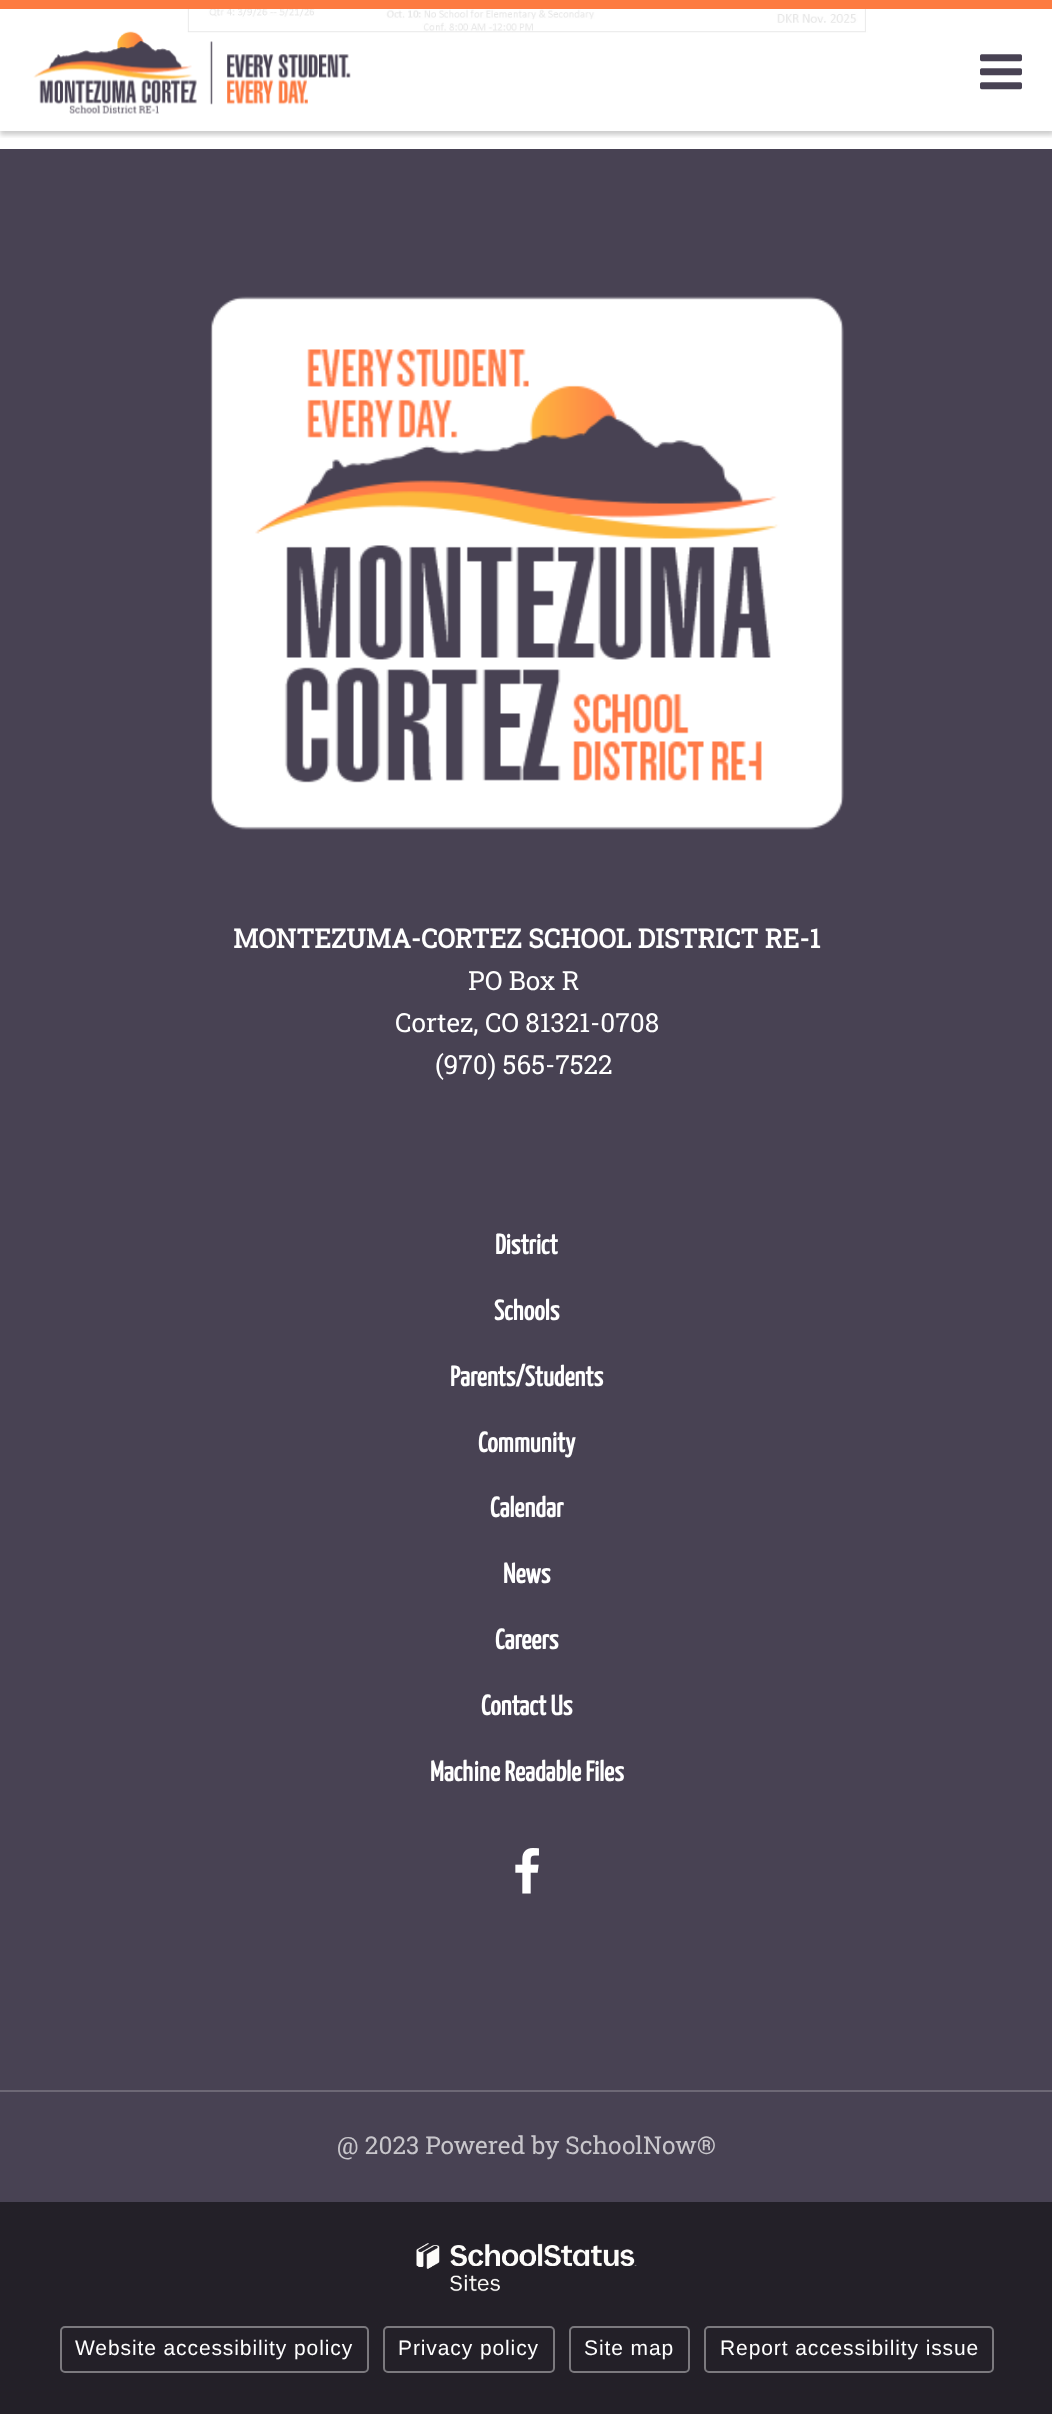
<?xml version="1.0" encoding="UTF-8"?>
<svg xmlns="http://www.w3.org/2000/svg" width="1052" height="2414">
    <defs>
        <clipPath id="clip1"><rect x="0" y="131" width="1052" height="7"/></clipPath>
        <filter id="blur1" x="-50%" y="-200%" width="200%" height="500%"><feGaussianBlur stdDeviation="2.5"/></filter>
    </defs>
    <rect width="100%" height="100%" fill="#FFFFFF"/>
    <image x="187" y="9" width="681" height="24" href="img_03.png"/>
    <g clip-path="url(#clip1)">
        <rect x="0" y="4" width="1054" height="131" fill="#000000" fill-opacity="0.2" filter="url(#blur1)"/>
    </g>
    <rect x="0" y="0" width="1052" height="9" fill="#FD7B41"/>
    <image x="33" y="31" width="318" height="83" href="img_01.png"/>
    <image x="980" y="54" width="42" height="36" href="img_02.png"/>
    <rect x="0" y="149" width="1052" height="2053" fill="#484253"/>
    <image x="210" y="296" width="634" height="534" href="img_04.png"/>
    <text x="233" y="948" font-family="Roboto Slab" font-size="26.25" font-weight="700" fill="#FFFFFF">MONTEZUMA-CORTEZ SCHOOL DISTRICT RE-1</text>
    <text x="468" y="990" font-family="Roboto Slab" font-size="26.25" fill="#FFFFFF">PO Box R</text>
    <text x="395" y="1032" font-family="Roboto Slab" font-size="26.25" fill="#FFFFFF">Cortez, CO 81321-0708</text>
    <text x="435" y="1074" font-family="Roboto Slab" font-size="26.25" fill="#FFFFFF">(970) 565-7522</text>
    <text x="495" y="1254" font-family="Yanone Kaffeesatz" font-size="28" font-weight="700" fill="#FFFFFF">District</text>
    <text x="494" y="1320" font-family="Yanone Kaffeesatz" font-size="28" font-weight="700" fill="#FFFFFF">Schools</text>
    <text x="450" y="1386" font-family="Yanone Kaffeesatz" font-size="28" font-weight="700" fill="#FFFFFF">Parents/Students</text>
    <text x="478" y="1452" font-family="Yanone Kaffeesatz" font-size="28" font-weight="700" fill="#FFFFFF">Community</text>
    <text x="490" y="1517" font-family="Yanone Kaffeesatz" font-size="28" font-weight="700" fill="#FFFFFF">Calendar</text>
    <text x="503" y="1583" font-family="Yanone Kaffeesatz" font-size="28" font-weight="700" fill="#FFFFFF">News</text>
    <text x="495" y="1649" font-family="Yanone Kaffeesatz" font-size="28" font-weight="700" fill="#FFFFFF">Careers</text>
    <text x="481" y="1715" font-family="Yanone Kaffeesatz" font-size="28" font-weight="700" fill="#FFFFFF">Contact Us</text>
    <text x="430" y="1781" font-family="Yanone Kaffeesatz" font-size="28" font-weight="700" fill="#FFFFFF">Machine Readable Files</text>
    <image x="515" y="1848" width="24" height="46" href="img_05.png"/>
    <rect x="0" y="2090" width="1052" height="2" fill="#6D6875"/>
    <text x="337" y="2154" font-family="Roboto Slab" font-size="24.5" fill="#C8C6CB">@ 2023 Powered by SchoolNow®</text>
    <rect x="0" y="2202" width="1052" height="212" fill="#232028"/>
    <image x="416" y="2243" width="221" height="49" href="img_06.png"/>
    <rect x="61" y="2327" width="307" height="45" rx="4" fill="none" stroke="#7B797E" stroke-width="2"/>
    <text x="75" y="2355" font-family="Liberation Sans" font-size="21" letter-spacing="0.9" fill="#FFFFFF">Website accessibility policy</text>
    <rect x="384" y="2327" width="170" height="45" rx="4" fill="none" stroke="#7B797E" stroke-width="2"/>
    <text x="398" y="2355" font-family="Liberation Sans" font-size="21" letter-spacing="0.9" fill="#FFFFFF">Privacy policy</text>
    <rect x="570" y="2327" width="119" height="45" rx="4" fill="none" stroke="#7B797E" stroke-width="2"/>
    <text x="584" y="2355" font-family="Liberation Sans" font-size="21" letter-spacing="0.9" fill="#FFFFFF">Site map</text>
    <rect x="705" y="2327" width="288" height="45" rx="4" fill="none" stroke="#7B797E" stroke-width="2"/>
    <text x="720" y="2355" font-family="Liberation Sans" font-size="21" letter-spacing="0.9" fill="#FFFFFF">Report accessibility issue</text>
</svg>
